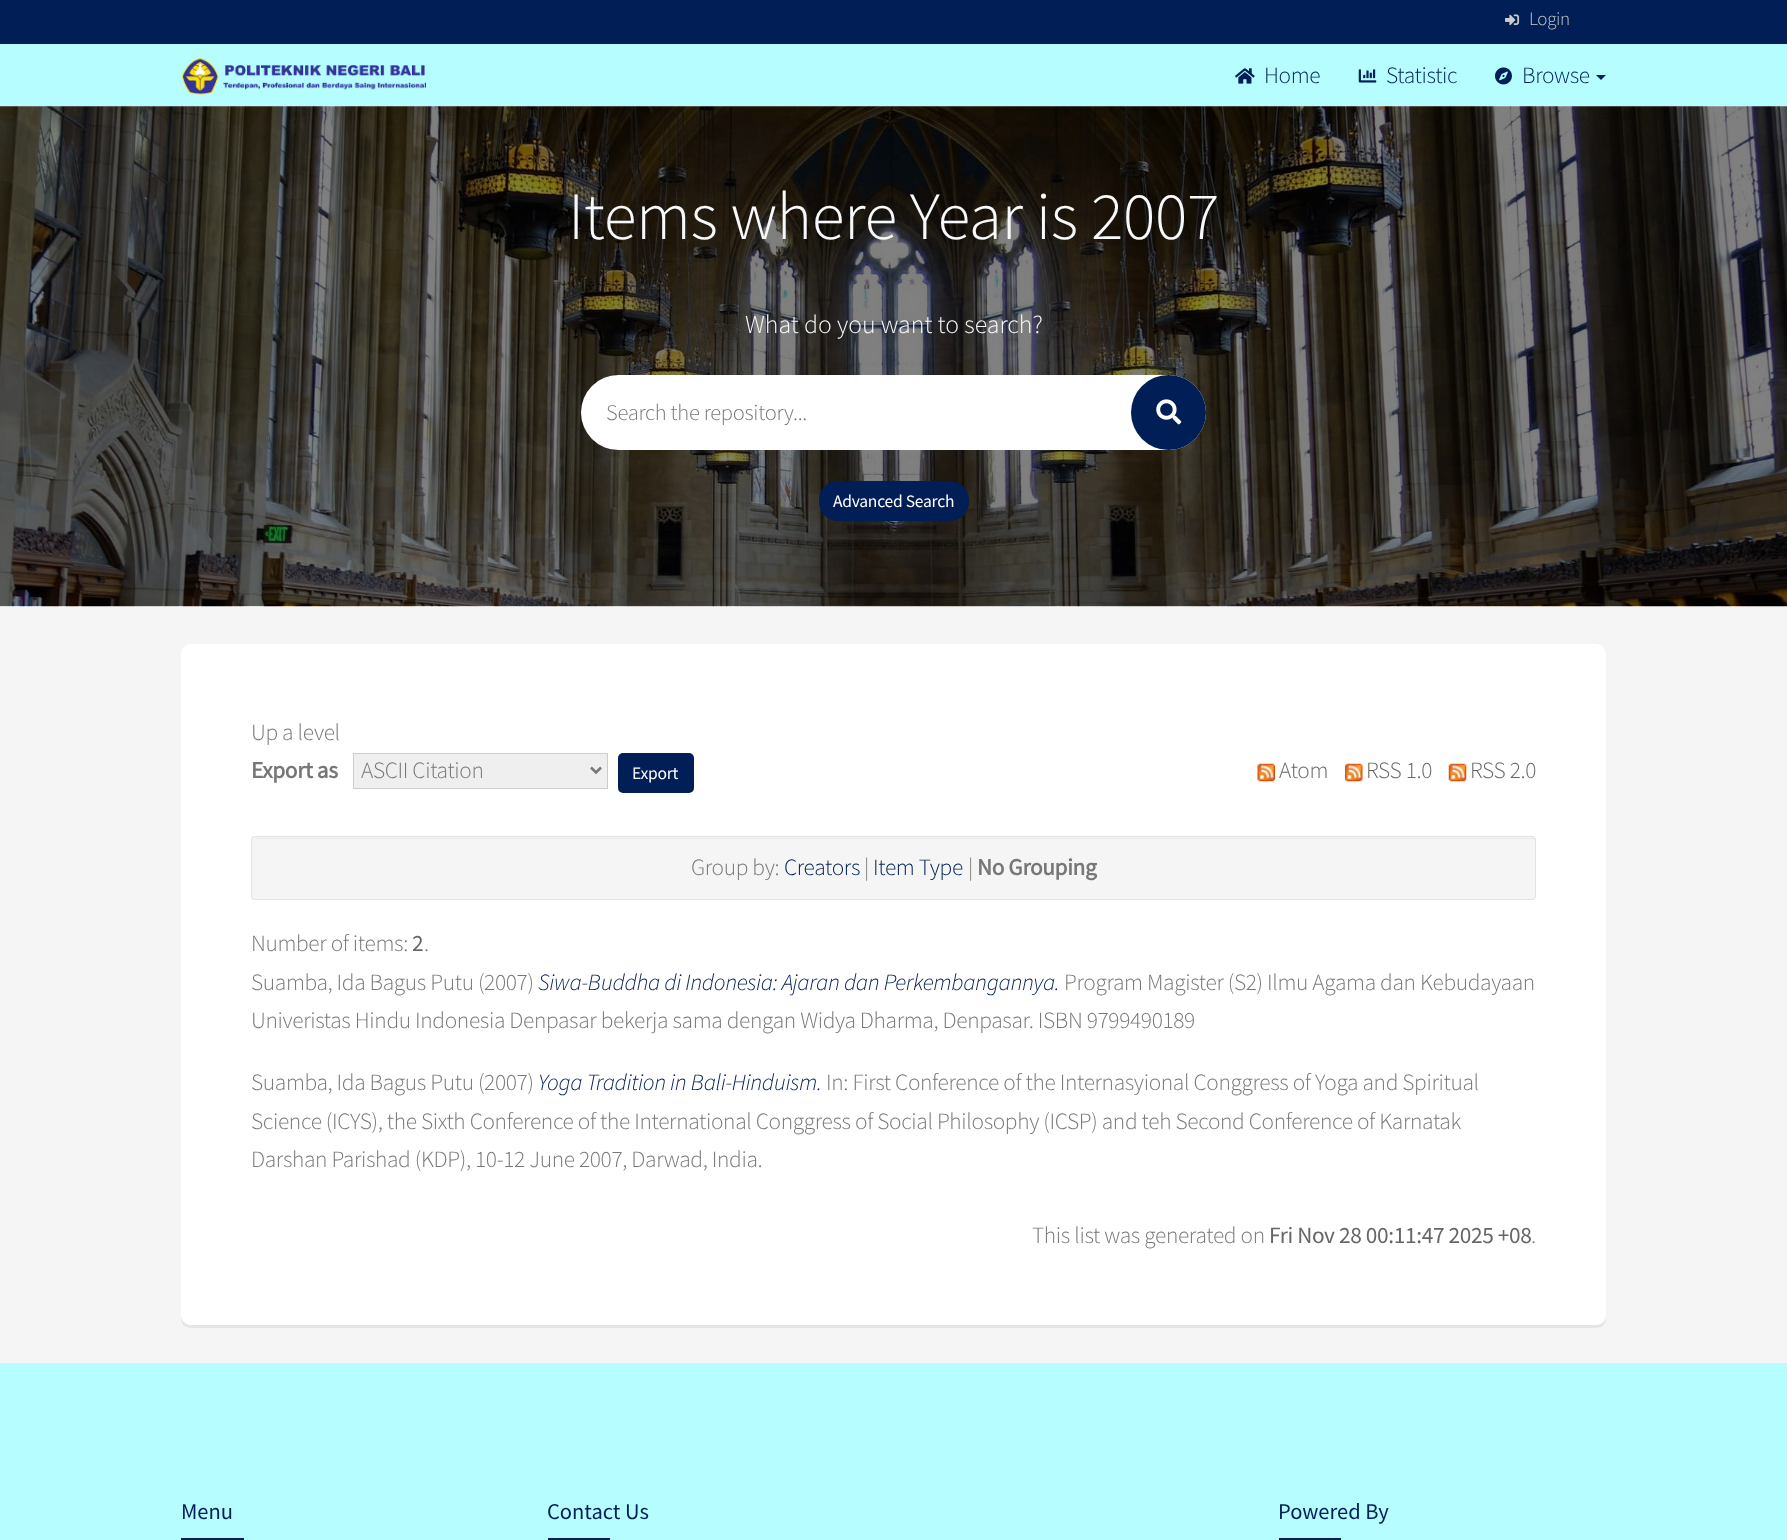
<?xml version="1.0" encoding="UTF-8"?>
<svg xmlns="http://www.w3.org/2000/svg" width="1787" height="1540">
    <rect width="100%" height="100%" fill="#F5F5F5"/>
    <rect x="0" y="0" width="1787" height="44" fill="#011E56"/>
    <image x="1505" y="14" width="15" height="12" href="img_01.png"/>
    <text x="1529" y="25" font-family="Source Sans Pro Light" font-size="19" font-weight="300" letter-spacing="-0.35" fill="#CCCCCC">Login</text>
    <rect x="0" y="44" width="1787" height="62" fill="#B5FDFF"/>
    <image x="181" y="57" width="245" height="38" href="img_02.png"/>
    <image x="1235" y="68" width="20" height="16" href="img_03.png"/>
    <text x="1264" y="83" font-family="Source Sans Pro Light" font-size="23.33" font-weight="300" letter-spacing="-0.35" fill="#011E56">Home</text>
    <image x="1358" y="69" width="19" height="14" href="img_04.png"/>
    <text x="1386" y="83" font-family="Source Sans Pro Light" font-size="23.33" font-weight="300" letter-spacing="-0.35" fill="#011E56">Statistic</text>
    <image x="1495" y="67" width="17" height="18" href="img_05.png"/>
    <text x="1522" y="83" font-family="Source Sans Pro Light" font-size="23.33" font-weight="300" letter-spacing="-0.35" fill="#011E56">Browse</text>
    <path d="M 1596 75 H 1606 L 1601 80 Z" fill="#011E56"/>
    <image x="0" y="106" width="1787" height="501" href="img_06.png"/>
    <text x="568" y="239" font-family="Source Sans Pro Light" font-size="67.5" font-weight="300" letter-spacing="-0.35" fill="#F8F9FA">Items where Year is 2007</text>
    <text x="745" y="333" font-family="Source Sans Pro Light" font-size="25.75" font-weight="300" fill="#F8F9FA">What do you want to search?</text>
    <rect x="581" y="375" width="625" height="75" rx="37.5" fill="#FFFFFF"/>
    <text x="606" y="420" font-family="Source Sans Pro Light" font-size="22.5" font-weight="300" letter-spacing="-0.3" fill="#777777">Search the repository...</text>
    <circle cx="1168.5" cy="412.5" r="37.5" fill="#011E56"/>
    <image x="1156" y="399" width="26" height="26" href="img_07.png"/>
    <rect x="819" y="481" width="150" height="40" rx="19" fill="#011E56"/>
    <text x="833" y="507" font-family="Source Sans Pro" font-size="17.5" letter-spacing="-0.25" fill="#FFFFFF">Advanced Search</text>
    <path d="M 181 654 V 1318 C 181 1324 185 1328 191 1328 H 1596 C 1602 1328 1606 1324 1606 1318 V 1317 C 1605 1322 1601 1325 1596 1325 H 191 C 186 1325 181 1321 181 1315 Z" fill="#E5E5E5"/>
    <rect x="181" y="644" width="1425" height="681" rx="10" fill="#FFFFFF"/>
    <text x="251" y="740" font-family="Source Sans Pro Light" font-size="23.33" font-weight="300" letter-spacing="-0.35" fill="#777777">Up a level</text>
    <text x="251" y="778" font-family="Source Sans Pro" font-size="23.33" font-weight="700" letter-spacing="-0.35" fill="#777777">Export as</text>
    <rect x="353.5" y="753.5" width="254" height="35" fill="#EFEFEF" stroke="#CCCCCC"/>
    <path d="M 591 767.5 L 596 772.5 L 601 767.5" fill="none" stroke="#777777" stroke-width="2.5"/>
    <text x="361" y="778" font-family="Source Sans Pro Light" font-size="23.33" font-weight="300" letter-spacing="-0.35" fill="#777777">ASCII Citation</text>
    <rect x="618" y="753" width="76" height="40" rx="5" fill="#011E56"/>
    <text x="632" y="779" font-family="Source Sans Pro" font-size="17.5" letter-spacing="-0.25" fill="#FFFFFF">Export</text>
    <image x="1257" y="763" width="18" height="19" href="img_08.png"/>
    <text x="1279" y="778" font-family="Source Sans Pro Light" font-size="23.33" font-weight="300" letter-spacing="-0.35" fill="#666666">Atom</text>
    <image x="1345" y="763" width="18" height="19" href="img_09.png"/>
    <text x="1366" y="778" font-family="Source Sans Pro Light" font-size="23.33" font-weight="300" letter-spacing="-0.35" fill="#666666">RSS 1.0</text>
    <image x="1448" y="763" width="19" height="19" href="img_10.png"/>
    <text x="1470" y="778" font-family="Source Sans Pro Light" font-size="23.33" font-weight="300" letter-spacing="-0.35" fill="#666666">RSS 2.0</text>
    <rect x="251" y="836" width="1285" height="64" rx="4" fill="#F5F5F5"/>
    <path d="M 255 839 H 1532 C 1534 839 1535 840 1535 841 C 1535 839 1534 838 1532 838 H 256 L 253 840 Z" fill="#E9E9E9"/>
    <rect x="251.5" y="836.5" width="1284" height="63" rx="3.5" fill="none" stroke="#E3E3E3"/>
    <text x="691" y="875" font-family="Source Sans Pro Light" font-size="23.33" font-weight="300" letter-spacing="-0.35" fill="#777777">Group by:</text>
    <text x="784" y="875" font-family="Source Sans Pro Light" font-size="23.33" font-weight="300" letter-spacing="-0.35" fill="#011E56">Creators</text>
    <text x="864" y="875" font-family="Source Sans Pro Light" font-size="23.33" font-weight="300" letter-spacing="-0.35" fill="#777777">|</text>
    <text x="873" y="875" font-family="Source Sans Pro Light" font-size="23.33" font-weight="300" letter-spacing="-0.35" fill="#011E56">Item Type</text>
    <text x="968" y="875" font-family="Source Sans Pro Light" font-size="23.33" font-weight="300" letter-spacing="-0.35" fill="#777777">|</text>
    <text x="977" y="875" font-family="Source Sans Pro" font-size="23.33" font-weight="700" letter-spacing="-0.35" fill="#777777">No Grouping</text>
    <text x="251" y="951" font-family="Source Sans Pro Light" font-size="23.33" font-weight="300" letter-spacing="-0.35" fill="#777777">Number of items:</text>
    <text x="412" y="951" font-family="Source Sans Pro" font-size="23.33" letter-spacing="-0.35" fill="#666666">2</text>
    <text x="424" y="951" font-family="Source Sans Pro Light" font-size="23.33" font-weight="300" letter-spacing="-0.35" fill="#777777">.</text>
    <text x="251" y="990" font-family="Source Sans Pro Light" font-size="23.33" font-weight="300" letter-spacing="-0.35" fill="#777777">Suamba, Ida Bagus Putu (2007)</text>
    <text x="538" y="990" font-family="Source Sans Pro Light" font-size="23.33" font-weight="300" font-style="italic" letter-spacing="-0.35" fill="#011E56">Siwa-Buddha di Indonesia: Ajaran dan Perkembangannya.</text>
    <text x="1064" y="990" font-family="Source Sans Pro Light" font-size="23.33" font-weight="300" letter-spacing="-0.35" fill="#777777">Program Magister (S2) Ilmu Agama dan Kebudayaan</text>
    <text x="251" y="1028" font-family="Source Sans Pro Light" font-size="23.33" font-weight="300" letter-spacing="-0.35" fill="#777777">Univeristas Hindu Indonesia Denpasar bekerja sama dengan Widya Dharma, Denpasar. ISBN 9799490189</text>
    <text x="251" y="1090" font-family="Source Sans Pro Light" font-size="23.33" font-weight="300" letter-spacing="-0.35" fill="#777777">Suamba, Ida Bagus Putu (2007)</text>
    <text x="538" y="1090" font-family="Source Sans Pro Light" font-size="23.33" font-weight="300" font-style="italic" letter-spacing="-0.35" fill="#011E56">Yoga Tradition in Bali-Hinduism.</text>
    <text x="826" y="1090" font-family="Source Sans Pro Light" font-size="23.33" font-weight="300" letter-spacing="-0.35" fill="#777777">In: First Conference of the Internasyional Conggress of Yoga and Spiritual</text>
    <text font-family="Source Sans Pro Light" font-size="23.33" font-weight="300" letter-spacing="-0.35" fill="#777777">
        <tspan x="251" y="1129">Science (ICYS), the Sixth Conference of the International Conggress of Social Philosophy (ICSP) and teh Second Conference of Karnatak</tspan>
        <tspan x="251" y="1167">Darshan Parishad (KDP), 10-12 June 2007, Darwad, India.</tspan>
    </text>
    <text x="1032" y="1243" font-family="Source Sans Pro Light" font-size="23.33" font-weight="300" letter-spacing="-0.35" fill="#777777">This list was generated on</text>
    <text x="1269" y="1243" font-family="Source Sans Pro" font-size="23.33" letter-spacing="-0.35" fill="#666666">Fri Nov 28 00:11:47 2025 +08</text>
    <text x="1531" y="1243" font-family="Source Sans Pro Light" font-size="23.33" font-weight="300" letter-spacing="-0.35" fill="#777777">.</text>
    <rect x="0" y="1363" width="1787" height="177" fill="#B5FDFF"/>
    <text x="181" y="1519" font-family="Source Sans Pro" font-size="22.5" fill="#011E56">Menu</text>
    <rect x="181" y="1538" width="63" height="2" fill="#011E56"/>
    <text x="547" y="1519" font-family="Source Sans Pro" font-size="22.5" fill="#011E56">Contact Us</text>
    <rect x="548" y="1538" width="62" height="2" fill="#011E56"/>
    <text x="1278" y="1519" font-family="Source Sans Pro" font-size="22.5" fill="#011E56">Powered By</text>
    <rect x="1279" y="1538" width="62" height="2" fill="#011E56"/>
</svg>
